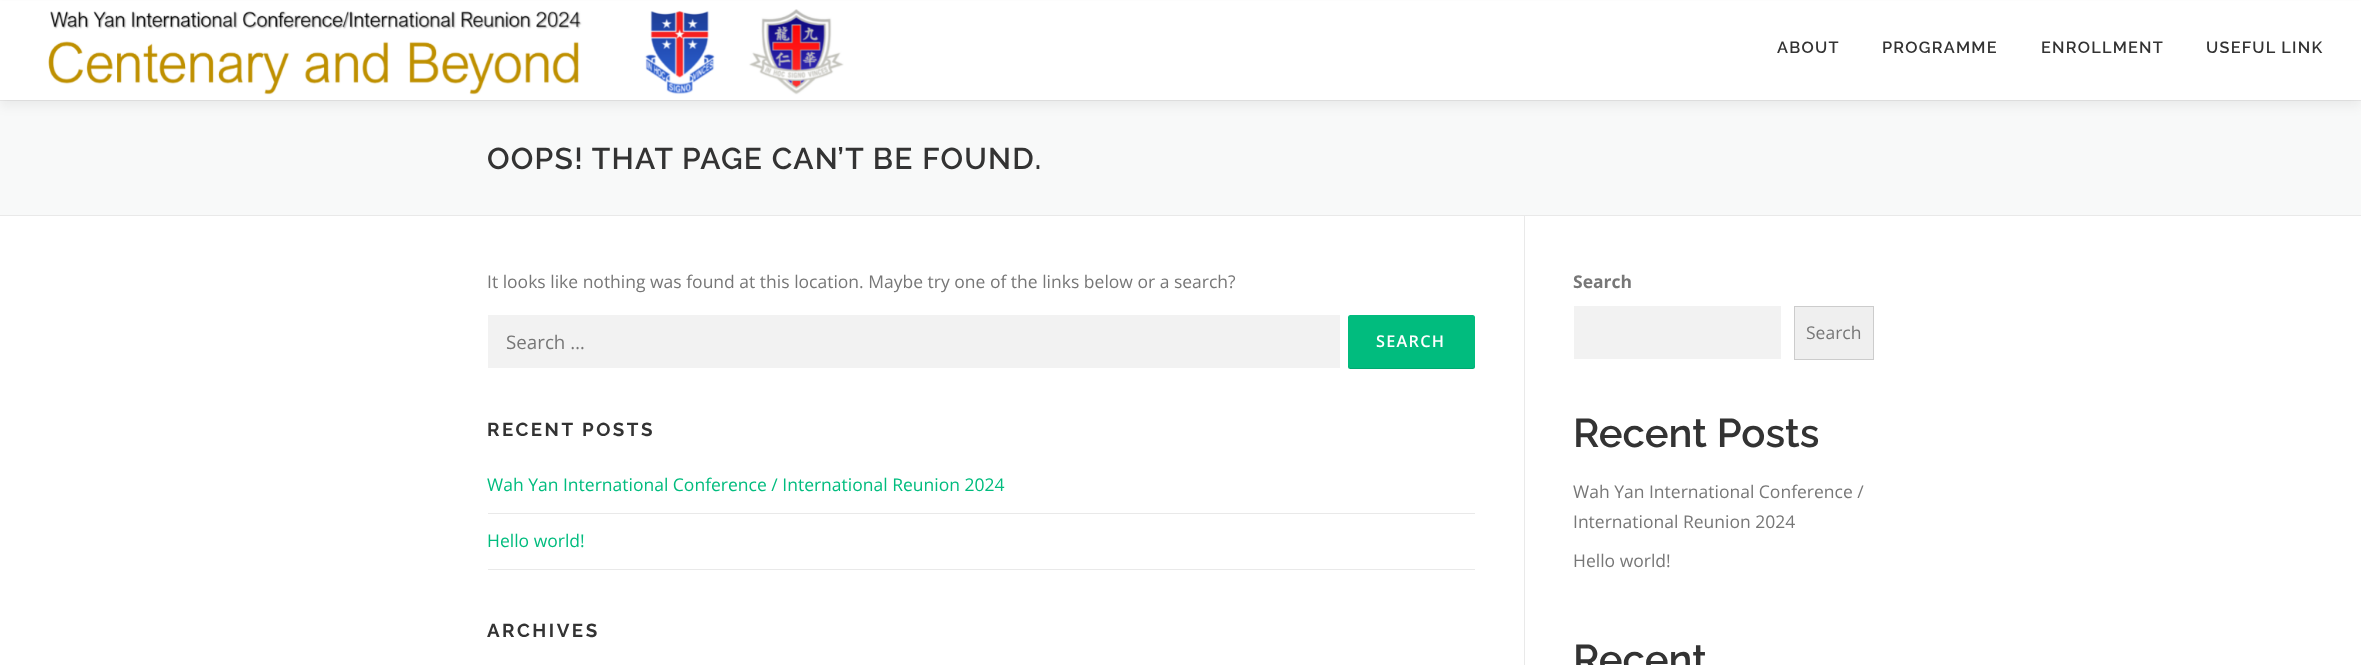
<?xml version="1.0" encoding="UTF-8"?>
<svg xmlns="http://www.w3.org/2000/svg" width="2361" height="665">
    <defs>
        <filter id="blur1" x="-50%" y="-200%" width="200%" height="500%"><feGaussianBlur stdDeviation="6"/></filter>
    </defs>
    <rect width="100%" height="100%" fill="#FFFFFF"/>
    <rect x="0" y="101" width="2361" height="114" fill="#F8F9F9"/>
    <rect x="0" y="100" width="2361" height="1" fill="#E9E9E9"/>
    <rect x="0" y="6" width="2361" height="100" fill="#323232" fill-opacity="0.06" filter="url(#blur1)"/>
    <rect x="0" y="1" width="2361" height="99" fill="#FFFFFF"/>
    <image x="48" y="9" width="796" height="86" href="img_01.png"/>
    <text x="1777" y="53" font-family="Raleway" font-size="16.25" font-weight="600" letter-spacing="1.25" fill="#333333">ABOUT</text>
    <text x="1882" y="53" font-family="Raleway" font-size="16.25" font-weight="600" letter-spacing="1.25" fill="#333333">PROGRAMME</text>
    <text x="2041" y="53" font-family="Raleway" font-size="16.25" font-weight="600" letter-spacing="1.25" fill="#333333">ENROLLMENT</text>
    <text x="2206" y="53" font-family="Raleway" font-size="16.25" font-weight="600" letter-spacing="1.25" fill="#333333">USEFUL LINK</text>
    <rect x="0" y="215" width="2361" height="1" fill="#E9E9E9"/>
    <text x="487" y="169" font-family="Raleway" font-size="30" font-weight="600" letter-spacing="1.25" fill="#333333">OOPS! THAT PAGE CAN’T BE FOUND.</text>
    <rect x="1524" y="216" width="1" height="449" fill="#E9E9E9"/>
    <text x="487" y="288" font-family="Open Sans" font-size="17.5" fill="#777777">It looks like nothing was found at this location. Maybe try one of the links below or a search?</text>
    <rect x="488" y="315" width="852" height="53" fill="#F2F2F2"/>
    <text x="506" y="349" font-family="Open Sans" font-size="18.75" fill="#777777">Search …</text>
    <rect x="1348" y="315" width="127" height="54" rx="2.5" fill="#01BC7E"/>
    <path d="M 1348 365 V 366 C 1348 368 1349 369 1350 369 H 1472 C 1474 369 1475 368 1475 366 V 365 C 1475 366 1474 368 1472 368 H 1350 C 1349 368 1348 366 1348 365 Z" fill="#000000" fill-opacity="0.1"/>
    <text x="1376" y="347" font-family="Open Sans" font-size="16.25" font-weight="600" letter-spacing="1.25" fill="#FFFFFF">SEARCH</text>
    <text x="487" y="436" font-family="Raleway" font-size="18.75" font-weight="700" letter-spacing="2.5" fill="#333333">RECENT POSTS</text>
    <rect x="488" y="513" width="987" height="1" fill="#E9E9E9"/>
    <text x="487" y="491" font-family="Open Sans" font-size="17.5" fill="#01BC7E">Wah Yan International Conference / International Reunion 2024</text>
    <rect x="488" y="569" width="987" height="1" fill="#E9E9E9"/>
    <text x="487" y="547" font-family="Open Sans" font-size="17.5" fill="#01BC7E">Hello world!</text>
    <text x="487" y="637" font-family="Raleway" font-size="18.75" font-weight="700" letter-spacing="2.5" fill="#333333">ARCHIVES</text>
    <text x="1573" y="288" font-family="Open Sans" font-size="17.5" font-weight="700" fill="#777777">Search</text>
    <rect x="1574" y="306" width="207" height="53" fill="#F2F2F2"/>
    <rect x="1794.5" y="306.5" width="79" height="53" fill="#EFEFEF" stroke="#CCCCCC"/>
    <text x="1806" y="339" font-family="Open Sans" font-size="17.5" fill="#777777">Search</text>
    <text x="1573" y="447" font-family="Raleway" font-size="40" font-weight="600" fill="#333333">Recent Posts</text>
    <text font-family="Open Sans" font-size="17.5" fill="#777777">
        <tspan x="1573" y="498">Wah Yan International Conference /</tspan>
        <tspan x="1573" y="528">International Reunion 2024</tspan>
    </text>
    <text x="1573" y="567" font-family="Open Sans" font-size="17.5" fill="#777777">Hello world!</text>
    <text x="1573" y="673" font-family="Raleway" font-size="40" font-weight="600" fill="#333333">Recent</text>
</svg>
